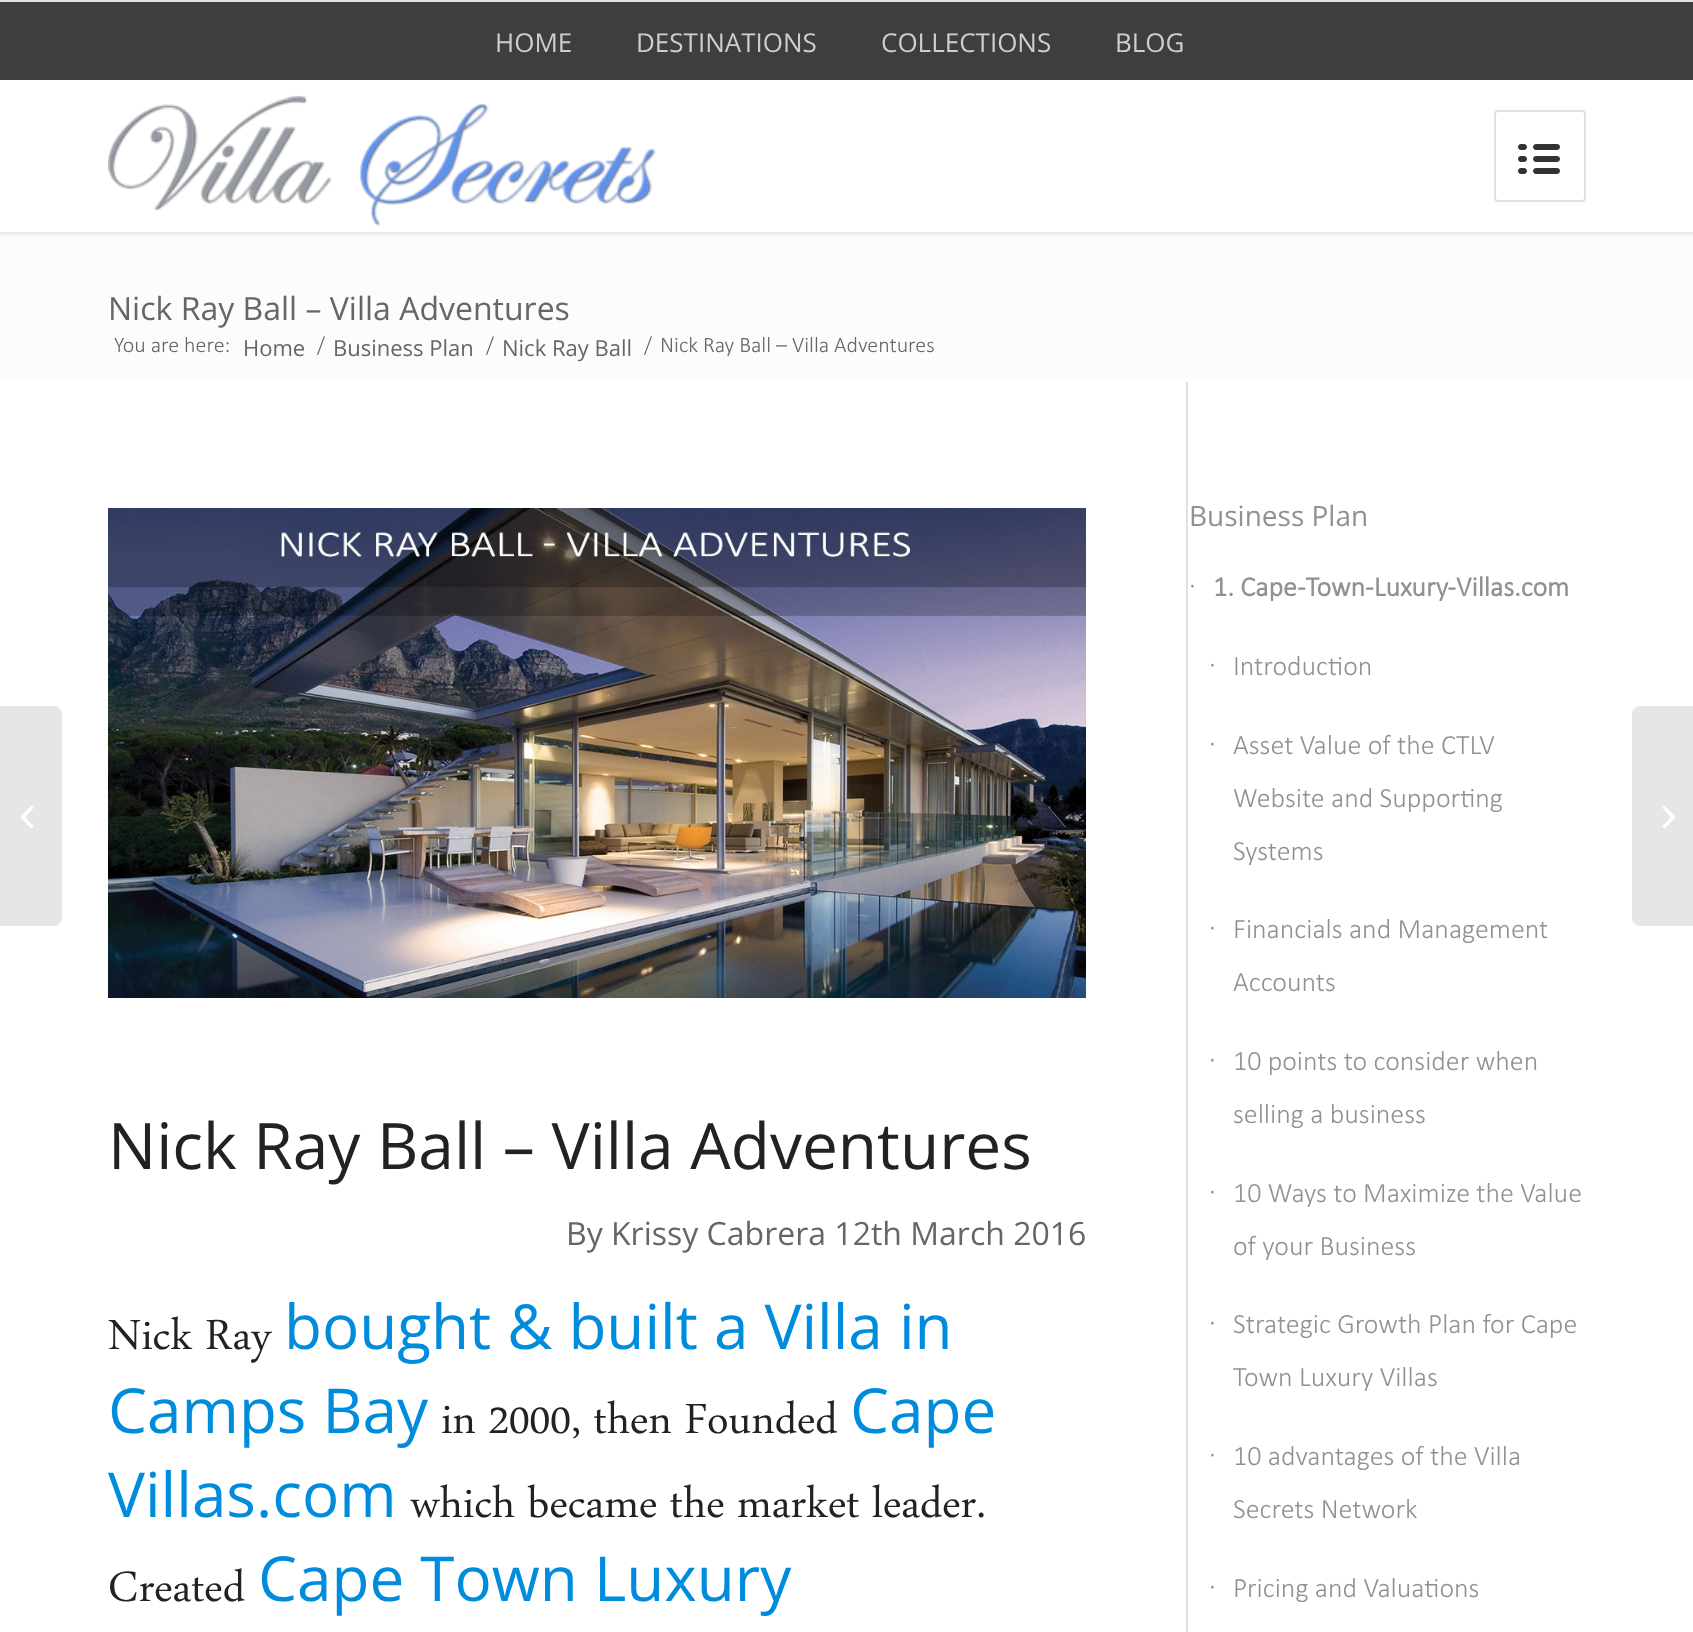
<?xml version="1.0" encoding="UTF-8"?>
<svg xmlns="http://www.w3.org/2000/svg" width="1693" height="1632">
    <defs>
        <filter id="blur1" x="-50%" y="-200%" width="200%" height="500%"><feGaussianBlur stdDeviation="2"/></filter>
    </defs>
    <rect width="100%" height="100%" fill="#FFFFFF"/>
    <rect x="0" y="232" width="1693" height="150" fill="#FCFCFC"/>
    <rect x="-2" y="-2" width="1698" height="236" fill="#000000" fill-opacity="0.1" filter="url(#blur1)"/>
    <rect x="0" y="2" width="1693" height="78" fill="#3E3E3E"/>
    <rect x="0" y="0" width="1693" height="2" fill="#E1E1E1"/>
    <text x="495" y="52" font-family="Open Sans" font-size="26" fill="#CECECE">HOME</text>
    <text x="636" y="52" font-family="Open Sans" font-size="26" fill="#CECECE">DESTINATIONS</text>
    <text x="881" y="52" font-family="Open Sans" font-size="26" fill="#CECECE">COLLECTIONS</text>
    <text x="1115" y="52" font-family="Open Sans" font-size="26" fill="#CECECE">BLOG</text>
    <rect x="0" y="80" width="1693" height="152" fill="#FFFFFF"/>
    <image x="108" y="95" width="548" height="131" href="img_01.png"/>
    <rect x="1495" y="111" width="90" height="90" rx="3" fill="none" stroke="#E1E1E1" stroke-width="2"/>
    <image x="1518" y="144" width="42" height="30" href="img_02.png"/>
    <path d="M 0 706 H 54 C 58.5 706 62 709.5 62 714 V 918 C 62 922.5 58.5 926 54 926 H 0 Z" fill="#E6E6E6"/>
    <image x="20" y="806" width="14" height="23" href="img_03.png"/>
    <text x="108" y="320" font-family="Open Sans" font-size="32" fill="#666666">Nick Ray Ball – Villa Adventures</text>
    <text x="114" y="352" font-family="Calibri" font-size="22" font-weight="300" fill="#666666">You are here:</text>
    <text x="243" y="356" font-family="Open Sans" font-size="22" fill="#666666">Home</text>
    <text x="317" y="352" font-family="Calibri" font-size="22" font-weight="300" fill="#666666">/</text>
    <text x="333" y="356" font-family="Open Sans" font-size="22" fill="#666666">Business Plan</text>
    <text x="486" y="352" font-family="Calibri" font-size="22" font-weight="300" fill="#666666">/</text>
    <text x="502" y="356" font-family="Open Sans" font-size="22" fill="#666666">Nick Ray Ball</text>
    <text x="644" y="352" font-family="Calibri" font-size="22" font-weight="300" fill="#666666">/</text>
    <text x="660" y="352" font-family="Calibri" font-size="22" font-weight="300" fill="#666666">Nick Ray Ball – Villa Adventures</text>
    <rect x="1186" y="382" width="2" height="1250" fill="#E1E1E1"/>
    <image x="108" y="508" width="978" height="490" href="img_04.png"/>
    <text x="108" y="1169" font-family="Open Sans" font-size="64" fill="#222222">Nick Ray Ball – Villa Adventures</text>
    <text x="566" y="1245" font-family="Open Sans" font-size="32" fill="#666666">By Krissy Cabrera 12th March 2016</text>
    <text x="108" y="1349" font-family="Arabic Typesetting" font-size="62" fill="#222222">Nick Ray</text>
    <text x="284" y="1349" font-family="Open Sans" font-size="62" fill="#008CDD">bought &amp; built a Villa in</text>
    <text x="108" y="1433" font-family="Open Sans" font-size="62" fill="#008CDD">Camps Bay</text>
    <text x="441" y="1433" font-family="Arabic Typesetting" font-size="62" fill="#222222">in 2000, then Founded</text>
    <text x="850" y="1433" font-family="Open Sans" font-size="62" fill="#008CDD">Cape</text>
    <text x="108" y="1517" font-family="Open Sans" font-size="62" fill="#008CDD">Villas.com</text>
    <text x="410" y="1517" font-family="Arabic Typesetting" font-size="62" fill="#222222">which became the market leader.</text>
    <text x="108" y="1601" font-family="Arabic Typesetting" font-size="62" fill="#222222">Created</text>
    <text x="258" y="1601" font-family="Open Sans" font-size="62" fill="#008CDD">Cape Town Luxury</text>
    <text x="1189" y="526" font-family="Open Sans" font-size="28" fill="#919191">Business Plan</text>
    <text x="1189" y="594" font-family="Calibri" font-size="28" font-weight="300" fill="#919191">∙</text>
    <text x="1213" y="596" font-family="Calibri" font-size="28" font-weight="700" fill="#919191">1. Cape-Town-Luxury-Villas.com</text>
    <text x="1209" y="673" font-family="Calibri" font-size="28" font-weight="300" fill="#919191">∙</text>
    <text x="1233" y="675" font-family="Calibri" font-size="28" font-weight="300" fill="#919191">Introduction</text>
    <text x="1209" y="752" font-family="Calibri" font-size="28" font-weight="300" fill="#919191">∙</text>
    <text font-family="Calibri" font-size="28" font-weight="300" fill="#919191">
        <tspan x="1233" y="754">Asset Value of the CTLV</tspan>
        <tspan x="1233" y="807">Website and Supporting</tspan>
        <tspan x="1233" y="860">Systems</tspan>
    </text>
    <text x="1209" y="936" font-family="Calibri" font-size="28" font-weight="300" fill="#919191">∙</text>
    <text font-family="Calibri" font-size="28" font-weight="300" fill="#919191">
        <tspan x="1233" y="938">Financials and Management</tspan>
        <tspan x="1233" y="991">Accounts</tspan>
    </text>
    <text x="1209" y="1068" font-family="Calibri" font-size="28" font-weight="300" fill="#919191">∙</text>
    <text font-family="Calibri" font-size="28" font-weight="300" fill="#919191">
        <tspan x="1233" y="1070">10 points to consider when</tspan>
        <tspan x="1233" y="1123">selling a business</tspan>
    </text>
    <text x="1209" y="1200" font-family="Calibri" font-size="28" font-weight="300" fill="#919191">∙</text>
    <text font-family="Calibri" font-size="28" font-weight="300" fill="#919191">
        <tspan x="1233" y="1202">10 Ways to Maximize the Value</tspan>
        <tspan x="1233" y="1255">of your Business</tspan>
    </text>
    <text x="1209" y="1331" font-family="Calibri" font-size="28" font-weight="300" fill="#919191">∙</text>
    <text font-family="Calibri" font-size="28" font-weight="300" fill="#919191">
        <tspan x="1233" y="1333">Strategic Growth Plan for Cape</tspan>
        <tspan x="1233" y="1386">Town Luxury Villas</tspan>
    </text>
    <text x="1209" y="1463" font-family="Calibri" font-size="28" font-weight="300" fill="#919191">∙</text>
    <text font-family="Calibri" font-size="28" font-weight="300" fill="#919191">
        <tspan x="1233" y="1465">10 advantages of the Villa</tspan>
        <tspan x="1233" y="1518">Secrets Network</tspan>
    </text>
    <text x="1209" y="1595" font-family="Calibri" font-size="28" font-weight="300" fill="#919191">∙</text>
    <text x="1233" y="1597" font-family="Calibri" font-size="28" font-weight="300" fill="#919191">Pricing and Valuations</text>
    <path d="M 1640 706 H 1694 V 926 H 1640 C 1635.5 926 1632 922.5 1632 918 V 714 C 1632 709.5 1635.5 706 1640 706 Z" fill="#E6E6E6"/>
    <image x="1662" y="806" width="14" height="23" href="img_05.png"/>
</svg>
